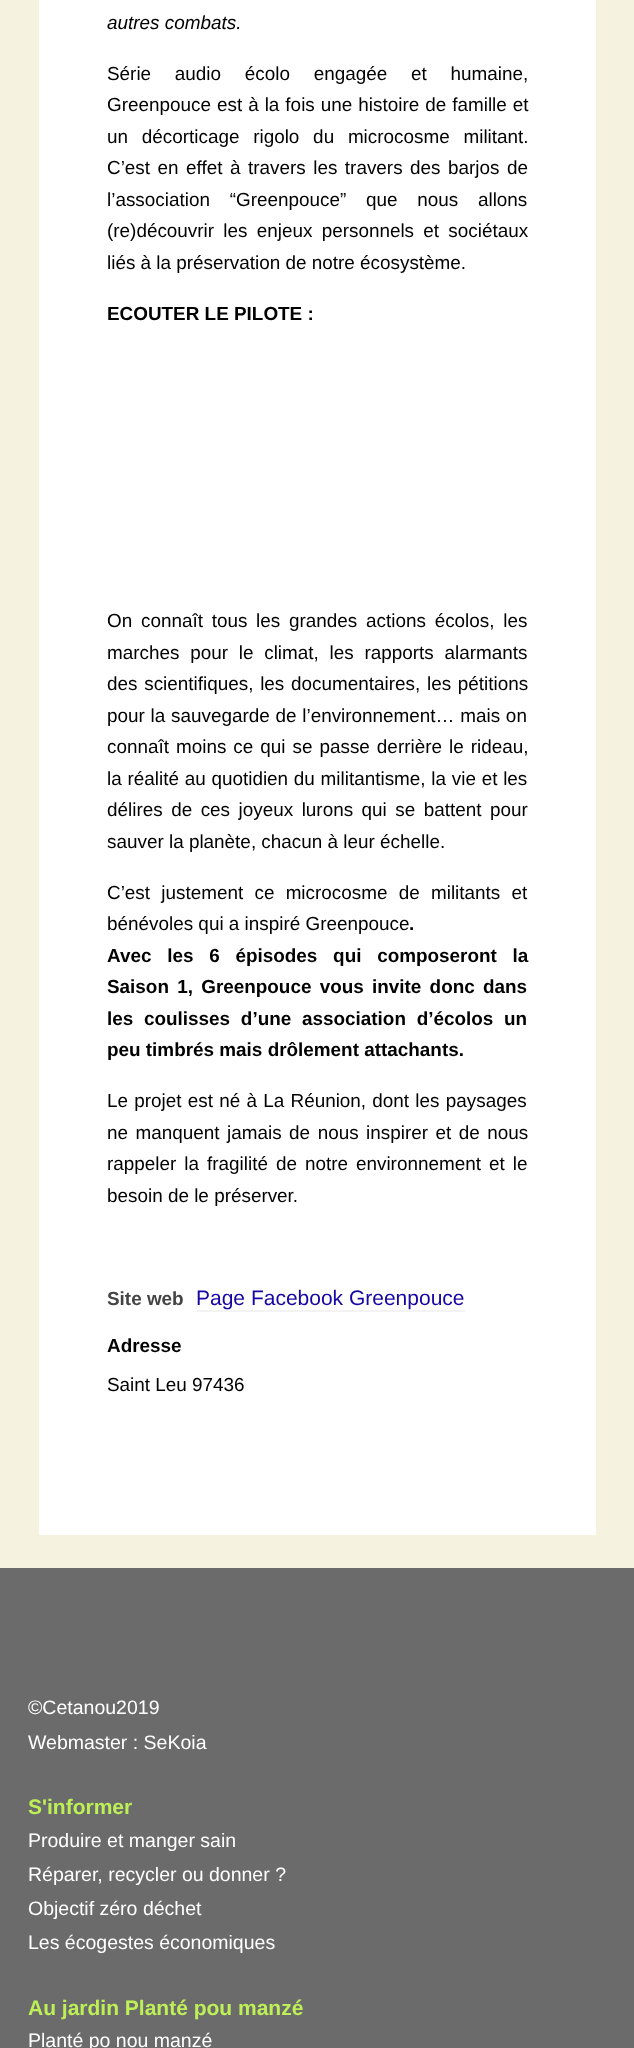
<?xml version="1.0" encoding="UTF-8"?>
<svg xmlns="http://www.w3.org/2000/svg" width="634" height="2048">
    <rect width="100%" height="100%" fill="#F5F3E0"/>
    <rect x="39" y="0" width="557" height="1535" fill="#FFFFFF"/>
    <text x="107" y="29" font-family="Liberation Sans" font-size="18.9" font-style="italic" fill="#000000">autres combats.</text>
    <text font-family="Liberation Sans" font-size="18.9" fill="#000000">
        <tspan x="107" y="80" word-spacing="18.5">Série audio écolo engagée et humaine,</tspan>
        <tspan x="107" y="111" word-spacing="0.75">Greenpouce est à la fois une histoire de famille et</tspan>
        <tspan x="107" y="143" word-spacing="8.5">un décorticage rigolo du microcosme militant.</tspan>
        <tspan x="107" y="174" word-spacing="2.25">C’est en effet à travers les travers des barjos de</tspan>
        <tspan x="107" y="206" word-spacing="14.5">l’association “Greenpouce” que nous allons</tspan>
        <tspan x="107" y="237" word-spacing="4">(re)découvrir les enjeux personnels et sociétaux</tspan>
        <tspan x="107" y="269">liés à la préservation de notre écosystème.</tspan>
    </text>
    <text x="107" y="320" font-family="Liberation Sans" font-size="18.9" font-weight="700" fill="#000000">ECOUTER LE PILOTE :</text>
    <text font-family="Liberation Sans" font-size="18.9" fill="#000000">
        <tspan x="107" y="627" word-spacing="3.5">On connaît tous les grandes actions écolos, les</tspan>
        <tspan x="107" y="659" word-spacing="5.5">marches pour le climat, les rapports alarmants</tspan>
        <tspan x="107" y="690" word-spacing="1.5">des scientifiques, les documentaires, les pétitions</tspan>
        <tspan x="107" y="722" word-spacing="0.5">pour la sauvegarde de l’environnement… mais on</tspan>
        <tspan x="107" y="753" word-spacing="1.75">connaît moins ce qui se passe derrière le rideau,</tspan>
        <tspan x="107" y="785" word-spacing="0.5">la réalité au quotidien du militantisme, la vie et les</tspan>
        <tspan x="107" y="816" word-spacing="3.25">délires de ces joyeux lurons qui se battent pour</tspan>
        <tspan x="107" y="848">sauver la planète, chacun à leur échelle.</tspan>
    </text>
    <text font-family="Liberation Sans" font-size="18.9" fill="#000000">
        <tspan x="107" y="899" word-spacing="6">C’est justement ce microcosme de militants et</tspan>
        <tspan x="107" y="930">bénévoles qui a inspiré Greenpouce</tspan>
    </text>
    <text x="409" y="930" font-family="Liberation Sans" font-size="18.9" font-weight="700" fill="#000000">.</text>
    <text font-family="Liberation Sans" font-size="18.9" font-weight="700" fill="#000000">
        <tspan x="107" y="962" word-spacing="10.5">Avec les 6 épisodes qui composeront la</tspan>
        <tspan x="107" y="993" word-spacing="3">Saison 1, Greenpouce vous invite donc dans</tspan>
        <tspan x="107" y="1025" word-spacing="5.5">les coulisses d’une association d’écolos un</tspan>
        <tspan x="107" y="1056">peu timbrés mais drôlement attachants.</tspan>
    </text>
    <text font-family="Liberation Sans" font-size="18.9" fill="#000000">
        <tspan x="107" y="1107" word-spacing="1">Le projet est né à La Réunion, dont les paysages</tspan>
        <tspan x="107" y="1139" word-spacing="2.25">ne manquent jamais de nous inspirer et de nous</tspan>
        <tspan x="107" y="1170" word-spacing="2.75">rappeler la fragilité de notre environnement et le</tspan>
        <tspan x="107" y="1202">besoin de le préserver.</tspan>
    </text>
    <text x="107" y="1305" font-family="Liberation Sans" font-size="18.9" font-weight="700" fill="#444444">Site web</text>
    <text x="196" y="1305" font-family="Liberation Sans" font-size="21" fill="#1606A3">Page Facebook Greenpouce</text>
    <rect x="197" y="1310" width="268" height="2" fill="#F3F3F3"/>
    <text x="107" y="1352" font-family="Liberation Sans" font-size="18.9" font-weight="700" fill="#000000">Adresse</text>
    <text x="107" y="1391" font-family="Liberation Sans" font-size="18.9" fill="#000000">Saint Leu 97436</text>
    <rect x="0" y="1568" width="634" height="480" fill="#6B6B6B"/>
    <text font-family="Liberation Sans" font-size="19.5" fill="#FFFFFF">
        <tspan x="28" y="1714">©Cetanou2019</tspan>
        <tspan x="28" y="1749">Webmaster : SeKoia</tspan>
    </text>
    <text x="28" y="1814" font-family="Liberation Sans" font-size="21" font-weight="700" fill="#BDEF57">S'informer</text>
    <text font-family="Liberation Sans" font-size="19.5" fill="#FFFFFF">
        <tspan x="28" y="1847">Produire et manger sain</tspan>
        <tspan x="28" y="1881">Réparer, recycler ou donner ?</tspan>
        <tspan x="28" y="1915">Objectif zéro déchet</tspan>
        <tspan x="28" y="1949">Les écogestes économiques</tspan>
    </text>
    <text x="28" y="2015" font-family="Liberation Sans" font-size="21" font-weight="700" fill="#BDEF57">Au jardin Planté pou manzé</text>
    <text x="28" y="2047" font-family="Liberation Sans" font-size="19.5" fill="#FFFFFF">Planté po nou manzé</text>
</svg>
